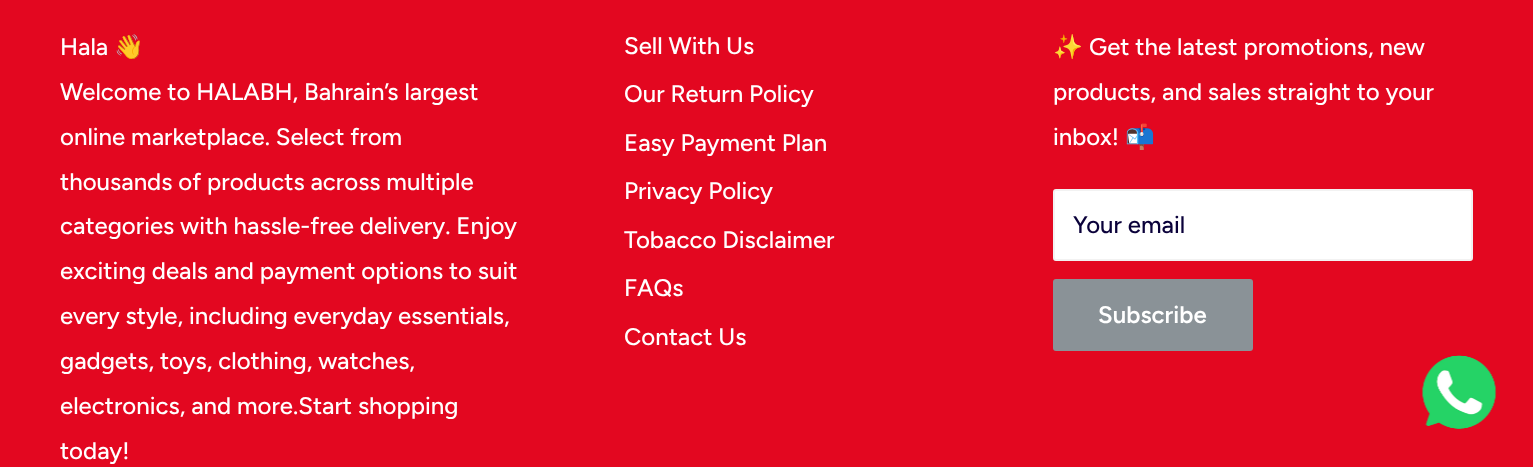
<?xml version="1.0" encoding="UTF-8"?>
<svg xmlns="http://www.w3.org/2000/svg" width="1533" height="467">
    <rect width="100%" height="100%" fill="#E30720"/>
    <text x="60" y="55" font-family="Figtree" font-size="24" font-weight="500" fill="#FFFFFF">Hala</text>
    <text x="114" y="55" font-family="Noto Color Emoji" font-size="24" fill="#FFFFFF">👋</text>
    <text font-family="Figtree" font-size="24" font-weight="500" fill="#FFFFFF">
        <tspan x="60" y="100">Welcome to HALABH, Bahrain’s largest</tspan>
        <tspan x="60" y="145">online marketplace. Select from</tspan>
        <tspan x="60" y="190">thousands of products across multiple</tspan>
        <tspan x="60" y="234">categories with hassle-free delivery. Enjoy</tspan>
        <tspan x="60" y="279">exciting deals and payment options to suit</tspan>
        <tspan x="60" y="324">every style, including everyday essentials,</tspan>
        <tspan x="60" y="369">gadgets, toys, clothing, watches,</tspan>
        <tspan x="60" y="414">electronics, and more.Start shopping</tspan>
        <tspan x="60" y="459">today!</tspan>
    </text>
    <text x="624" y="54" font-family="Figtree" font-size="24" font-weight="500" fill="#FFFFFF">Sell With Us</text>
    <text x="624" y="102" font-family="Figtree" font-size="24" font-weight="500" fill="#FFFFFF">Our Return Policy</text>
    <text x="624" y="151" font-family="Figtree" font-size="24" font-weight="500" fill="#FFFFFF">Easy Payment Plan</text>
    <text x="624" y="199" font-family="Figtree" font-size="24" font-weight="500" fill="#FFFFFF">Privacy Policy</text>
    <text x="624" y="248" font-family="Figtree" font-size="24" font-weight="500" fill="#FFFFFF">Tobacco Disclaimer</text>
    <text x="624" y="296" font-family="Figtree" font-size="24" font-weight="500" fill="#FFFFFF">FAQs</text>
    <text x="624" y="345" font-family="Figtree" font-size="24" font-weight="500" fill="#FFFFFF">Contact Us</text>
    <text x="1053" y="55" font-family="Noto Color Emoji" font-size="24" fill="#FFFFFF">✨</text>
    <text x="1089" y="55" font-family="Figtree" font-size="24" font-weight="500" fill="#FFFFFF">Get the latest promotions, new</text>
    <text font-family="Figtree" font-size="24" font-weight="500" fill="#FFFFFF">
        <tspan x="1053" y="100">products, and sales straight to your</tspan>
        <tspan x="1053" y="145">inbox!</tspan>
    </text>
    <text x="1125" y="145" font-family="Noto Color Emoji" font-size="24" fill="#FFFFFF">📬</text>
    <rect x="1054" y="190" width="418" height="70" rx="2" fill="#FFFFFF" stroke="#F2F2F2" stroke-width="2"/>
    <text x="1073" y="233" font-family="Figtree" font-size="24" font-weight="500" fill="#0A013A">Your email</text>
    <rect x="1053" y="279" width="200" height="72" rx="3" fill="#8A9297"/>
    <text x="1098" y="323" font-family="Figtree" font-size="24" font-weight="600" fill="#FFFFFF">Subscribe</text>
    <image x="1422" y="355" width="75" height="74" href="img_01.png"/>
</svg>
